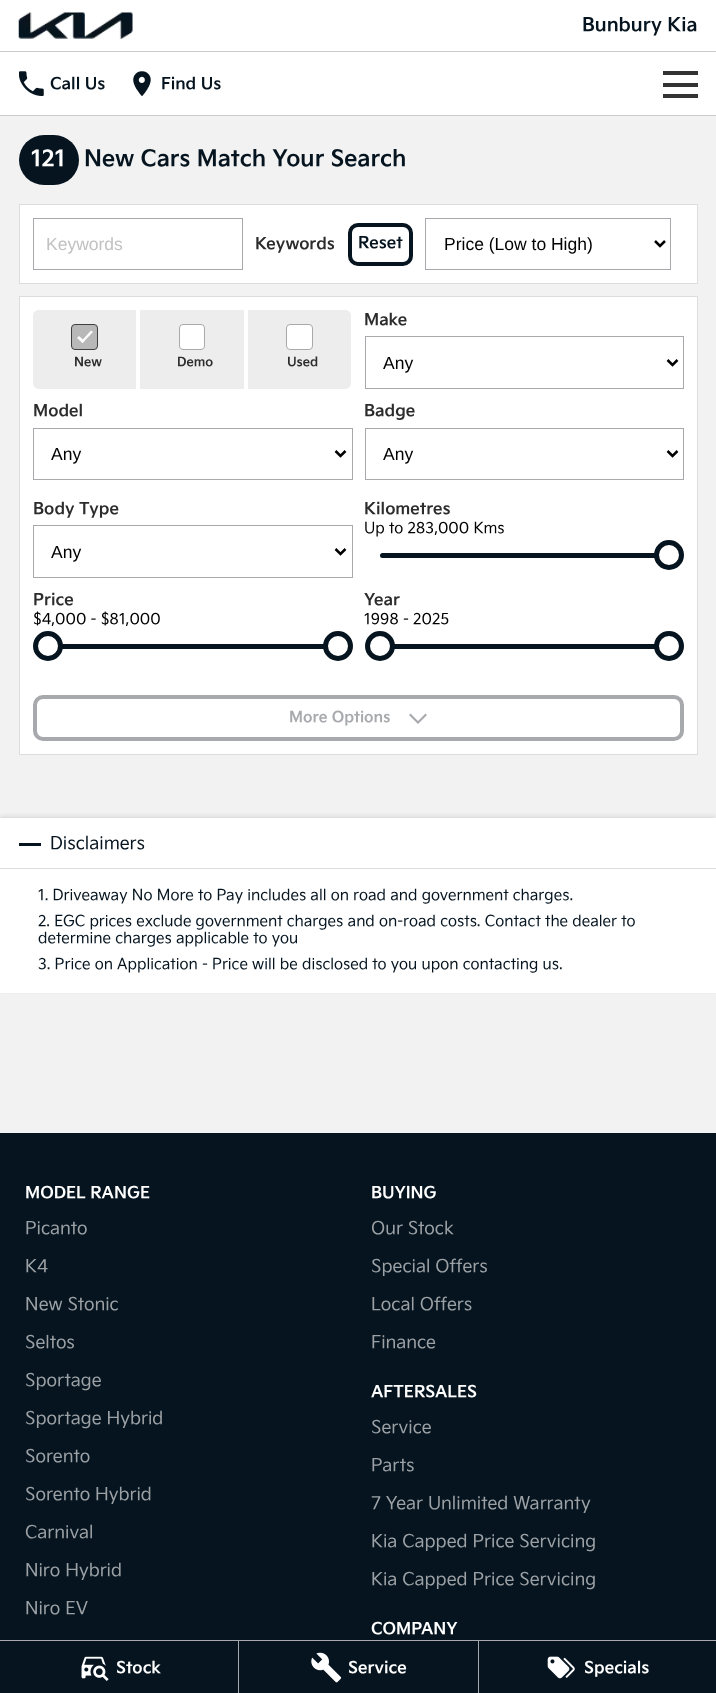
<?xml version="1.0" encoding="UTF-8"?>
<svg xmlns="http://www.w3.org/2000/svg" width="716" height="1693">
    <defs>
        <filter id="blur1" x="-50%" y="-200%" width="200%" height="500%"><feGaussianBlur stdDeviation="2"/></filter>
    </defs>
    <rect width="100%" height="100%" fill="#F2F2F2"/>
    <rect x="0" y="0" width="716" height="115" fill="#FFFFFF"/>
    <rect x="0" y="51" width="716" height="1" fill="#CCCCCC"/>
    <image x="18" y="12" width="115" height="27" href="img_01.png"/>
    <text x="582" y="31" font-family="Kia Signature" font-size="18.75" font-weight="700" fill="#05141F">Bunbury Kia</text>
    <rect x="0" y="115" width="716" height="1" fill="#CCCCCC"/>
    <image x="19" y="71" width="25" height="25" href="img_02.png"/>
    <text x="50" y="89" font-family="Kia Signature" font-size="16.25" font-weight="700" fill="#05141F">Call Us</text>
    <image x="133" y="71" width="18" height="25" href="img_03.png"/>
    <text x="161" y="89" font-family="Kia Signature" font-size="16.25" font-weight="700" fill="#05141F">Find Us</text>
    <rect x="663" y="71" width="35" height="4" fill="#333333"/>
    <rect x="663" y="83" width="35" height="4" fill="#333333"/>
    <rect x="663" y="94" width="35" height="4" fill="#333333"/>
    <rect x="19" y="135" width="60" height="50" rx="25" fill="#05141F"/>
    <text x="31" y="166" font-family="Kia Signature" font-size="22.5" font-weight="700" fill="#FFFFFF">121</text>
    <text x="84" y="166" font-family="Kia Signature" font-size="22.5" font-weight="700" fill="#05141F">New Cars Match Your Search</text>
    <rect x="19.5" y="204.5" width="678" height="79" fill="#FFFFFF" stroke="#DCDDDE"/>
    <rect x="33.5" y="218.5" width="209" height="51" fill="none" stroke="#A7A9AC"/>
    <text x="46" y="250" font-family="Liberation Sans" font-size="17.5" fill="#C1C1C1">Keywords</text>
    <text x="255" y="249" font-family="Kia Signature" font-size="16.25" font-weight="700" fill="#2C2C2C">Keywords</text>
    <rect x="350" y="225" width="61" height="39" rx="8" fill="none" stroke="#05141F" stroke-width="4"/>
    <text x="358" y="248" font-family="Kia Signature" font-size="16.25" font-weight="700" fill="#05141F">Reset</text>
    <rect x="425.5" y="218.5" width="245" height="51" fill="none" stroke="#A7A9AC"/>
    <path d="M 655 241 L 660 246 L 665 241" fill="none" stroke="#000000" stroke-width="2.5"/>
    <text x="444" y="250" font-family="Liberation Sans" font-size="17.5" fill="#000000">Price (Low to High)</text>
    <rect x="19.5" y="296.5" width="678" height="458" fill="#FFFFFF" stroke="#DCDDDE"/>
    <path d="M 39 310 H 136 V 389 H 39 C 35.5 389 33 386.5 33 383 V 316 C 33 312.5 35.5 310 39 310 Z" fill="#EDEDED"/>
    <rect x="71.5" y="324.5" width="26" height="25" rx="3.5" fill="#B8B8B8" stroke="#3F3F3F"/>
    <path d="M 91 330.5 L 93 332 L 82.5 343 L 81 341.5 Z" fill="#FDFDFD"/>
    <path d="M 79 336 L 84.5 341 L 82.5 343 L 77 338 Z" fill="#FDFDFD"/>
    <text x="74" y="366" font-family="Kia Signature" font-size="12.5" font-weight="700" fill="#2C2C2C">New</text>
    <rect x="140" y="310" width="104" height="79" fill="#EDEDED"/>
    <rect x="179.5" y="324.5" width="25" height="25" rx="3.5" fill="#FFFFFF" stroke="#A7A9AC"/>
    <text x="177" y="366" font-family="Kia Signature" font-size="12.5" font-weight="700" fill="#2C2C2C">Demo</text>
    <path d="M 248 310 H 345 C 348.5 310 351 312.5 351 316 V 383 C 351 386.5 348.5 389 345 389 H 248 Z" fill="#EDEDED"/>
    <rect x="286.5" y="324.5" width="26" height="25" rx="3.5" fill="#FFFFFF" stroke="#A7A9AC"/>
    <text x="287" y="366" font-family="Kia Signature" font-size="12.5" font-weight="700" fill="#2C2C2C">Used</text>
    <text x="364" y="325" font-family="Kia Signature" font-size="16.25" font-weight="700" fill="#2C2C2C">Make</text>
    <rect x="365.5" y="336.5" width="318" height="52" fill="none" stroke="#A7A9AC"/>
    <path d="M 667.5 360 L 672.5 365 L 677.5 360" fill="none" stroke="#000000" stroke-width="2.5"/>
    <text x="383" y="369" font-family="Liberation Sans" font-size="17.5" fill="#000000">Any</text>
    <text x="33" y="416" font-family="Kia Signature" font-size="16.25" font-weight="700" fill="#2C2C2C">Model</text>
    <rect x="33.5" y="428.5" width="319" height="51" fill="none" stroke="#A7A9AC"/>
    <path d="M 335.5 451 L 340.5 456 L 345.5 451" fill="none" stroke="#000000" stroke-width="2.5"/>
    <text x="51" y="460" font-family="Liberation Sans" font-size="17.5" fill="#000000">Any</text>
    <text x="364" y="416" font-family="Kia Signature" font-size="16.25" font-weight="700" fill="#2C2C2C">Badge</text>
    <rect x="365.5" y="428.5" width="318" height="51" fill="none" stroke="#A7A9AC"/>
    <path d="M 667.5 451 L 672.5 456 L 677.5 451" fill="none" stroke="#000000" stroke-width="2.5"/>
    <text x="383" y="460" font-family="Liberation Sans" font-size="17.5" fill="#000000">Any</text>
    <text x="33" y="514" font-family="Kia Signature" font-size="16.25" font-weight="700" fill="#2C2C2C">Body Type</text>
    <rect x="33.5" y="525.5" width="319" height="52" fill="none" stroke="#A7A9AC"/>
    <path d="M 335.5 549 L 340.5 554 L 345.5 549" fill="none" stroke="#000000" stroke-width="2.5"/>
    <text x="51" y="558" font-family="Liberation Sans" font-size="17.5" fill="#000000">Any</text>
    <text x="364" y="514" font-family="Kia Signature" font-size="16.25" font-weight="700" fill="#2C2C2C">Kilometres</text>
    <text x="364" y="533" font-family="Kia Signature" font-size="15" fill="#000000">Up to 283,000 Kms</text>
    <rect x="380" y="553" width="289" height="5" rx="2.5" fill="#05141F"/>
    <circle cx="669" cy="555" r="12.5" fill="#FFFFFF" stroke="#05141F" stroke-width="5"/>
    <text x="33" y="605" font-family="Kia Signature" font-size="16.25" font-weight="700" fill="#2C2C2C">Price</text>
    <text x="33" y="624" font-family="Kia Signature" font-size="15" fill="#000000">$4,000 - $81,000</text>
    <rect x="62" y="644" width="262" height="5" fill="#05141F"/>
    <circle cx="48" cy="646" r="12.5" fill="#FFFFFF" stroke="#05141F" stroke-width="5"/>
    <circle cx="338" cy="646" r="12.5" fill="#FFFFFF" stroke="#05141F" stroke-width="5"/>
    <text x="364" y="605" font-family="Kia Signature" font-size="16.25" font-weight="700" fill="#2C2C2C">Year</text>
    <text x="364" y="624" font-family="Kia Signature" font-size="15" fill="#000000">1998 - 2025</text>
    <rect x="394" y="644" width="261" height="5" fill="#05141F"/>
    <circle cx="380" cy="646" r="12.5" fill="#FFFFFF" stroke="#05141F" stroke-width="5"/>
    <circle cx="669" cy="646" r="12.5" fill="#FFFFFF" stroke="#05141F" stroke-width="5"/>
    <rect x="35" y="697" width="647" height="42" rx="8" fill="none" stroke="#A7A9AC" stroke-width="4"/>
    <text x="289" y="722" font-family="Kia Signature" font-size="15" font-weight="700" fill="#A7A9AC">More Options</text>
    <path d="M 427 715 L 418 724 L 409 715 L 410.5 713.5 L 418 721 L 425.5 713.5 Z" fill="#A7A9AC"/>
    <rect x="0" y="816" width="716" height="175" fill="#000000" fill-opacity="0.1" filter="url(#blur1)"/>
    <rect x="0" y="818" width="716" height="175" fill="#FFFFFF"/>
    <rect x="19" y="843" width="22" height="3" fill="#05141F"/>
    <text x="50" y="849" font-family="Kia Signature" font-size="17.5" fill="#05141F">Disclaimers</text>
    <rect x="0" y="868" width="716" height="1" fill="#DCDDDE"/>
    <text font-family="Kia Signature" font-size="15" fill="#05141F">
        <tspan x="38" y="900">1. Driveaway No More to Pay includes all on road and government charges.</tspan>
        <tspan x="38" y="926">2. EGC prices exclude government charges and on-road costs. Contact the dealer to</tspan>
        <tspan x="38" y="943">determine charges applicable to you</tspan>
        <tspan x="38" y="969">3. Price on Application - Price will be disclosed to you upon contacting us.</tspan>
    </text>
    <rect x="0" y="1133" width="716" height="560" fill="#05141F"/>
    <text x="25" y="1198" font-family="Kia Signature" font-size="16.25" font-weight="700" fill="#FFFFFF">MODEL RANGE</text>
    <text x="25" y="1234" font-family="Kia Signature" font-size="17.5" fill="#9CA1A5">Picanto</text>
    <text x="25" y="1272" font-family="Kia Signature" font-size="17.5" fill="#9CA1A5">K4</text>
    <text x="25" y="1310" font-family="Kia Signature" font-size="17.5" fill="#9CA1A5">New Stonic</text>
    <text x="25" y="1348" font-family="Kia Signature" font-size="17.5" fill="#9CA1A5">Seltos</text>
    <text x="25" y="1386" font-family="Kia Signature" font-size="17.5" fill="#9CA1A5">Sportage</text>
    <text x="25" y="1424" font-family="Kia Signature" font-size="17.5" fill="#9CA1A5">Sportage Hybrid</text>
    <text x="25" y="1462" font-family="Kia Signature" font-size="17.5" fill="#9CA1A5">Sorento</text>
    <text x="25" y="1500" font-family="Kia Signature" font-size="17.5" fill="#9CA1A5">Sorento Hybrid</text>
    <text x="25" y="1538" font-family="Kia Signature" font-size="17.5" fill="#9CA1A5">Carnival</text>
    <text x="25" y="1576" font-family="Kia Signature" font-size="17.5" fill="#9CA1A5">Niro Hybrid</text>
    <text x="25" y="1614" font-family="Kia Signature" font-size="17.5" fill="#9CA1A5">Niro EV</text>
    <text x="371" y="1198" font-family="Kia Signature" font-size="16.25" font-weight="700" fill="#FFFFFF">BUYING</text>
    <text x="371" y="1234" font-family="Kia Signature" font-size="17.5" fill="#9CA1A5">Our Stock</text>
    <text x="371" y="1272" font-family="Kia Signature" font-size="17.5" fill="#9CA1A5">Special Offers</text>
    <text x="371" y="1310" font-family="Kia Signature" font-size="17.5" fill="#9CA1A5">Local Offers</text>
    <text x="371" y="1348" font-family="Kia Signature" font-size="17.5" fill="#9CA1A5">Finance</text>
    <text x="371" y="1397" font-family="Kia Signature" font-size="16.25" font-weight="700" fill="#FFFFFF">AFTERSALES</text>
    <text x="371" y="1433" font-family="Kia Signature" font-size="17.5" fill="#9CA1A5">Service</text>
    <text x="371" y="1471" font-family="Kia Signature" font-size="17.5" fill="#9CA1A5">Parts</text>
    <text x="371" y="1509" font-family="Kia Signature" font-size="17.5" fill="#9CA1A5">7 Year Unlimited Warranty</text>
    <text x="371" y="1547" font-family="Kia Signature" font-size="17.5" fill="#9CA1A5">Kia Capped Price Servicing</text>
    <text x="371" y="1585" font-family="Kia Signature" font-size="17.5" fill="#9CA1A5">Kia Capped Price Servicing</text>
    <text x="371" y="1634" font-family="Kia Signature" font-size="16.25" font-weight="700" fill="#FFFFFF">COMPANY</text>
    <rect x="0" y="1640" width="716" height="1" fill="#A7A9AC"/>
    <rect x="238" y="1641" width="1" height="52" fill="#A7A9AC"/>
    <image x="81" y="1656" width="28" height="25" href="img_04.png"/>
    <text x="116" y="1673" font-family="Kia Signature" font-size="16.25" font-weight="700" fill="#FFFFFF">Stock</text>
    <rect x="478" y="1641" width="1" height="52" fill="#A7A9AC"/>
    <image x="311" y="1652" width="31" height="31" href="img_05.png"/>
    <text x="348" y="1673" font-family="Kia Signature" font-size="16.25" font-weight="700" fill="#FFFFFF">Service</text>
    <image x="547" y="1656" width="28" height="23" href="img_06.png"/>
    <text x="584" y="1673" font-family="Kia Signature" font-size="16.25" font-weight="700" fill="#FFFFFF">Specials</text>
</svg>
